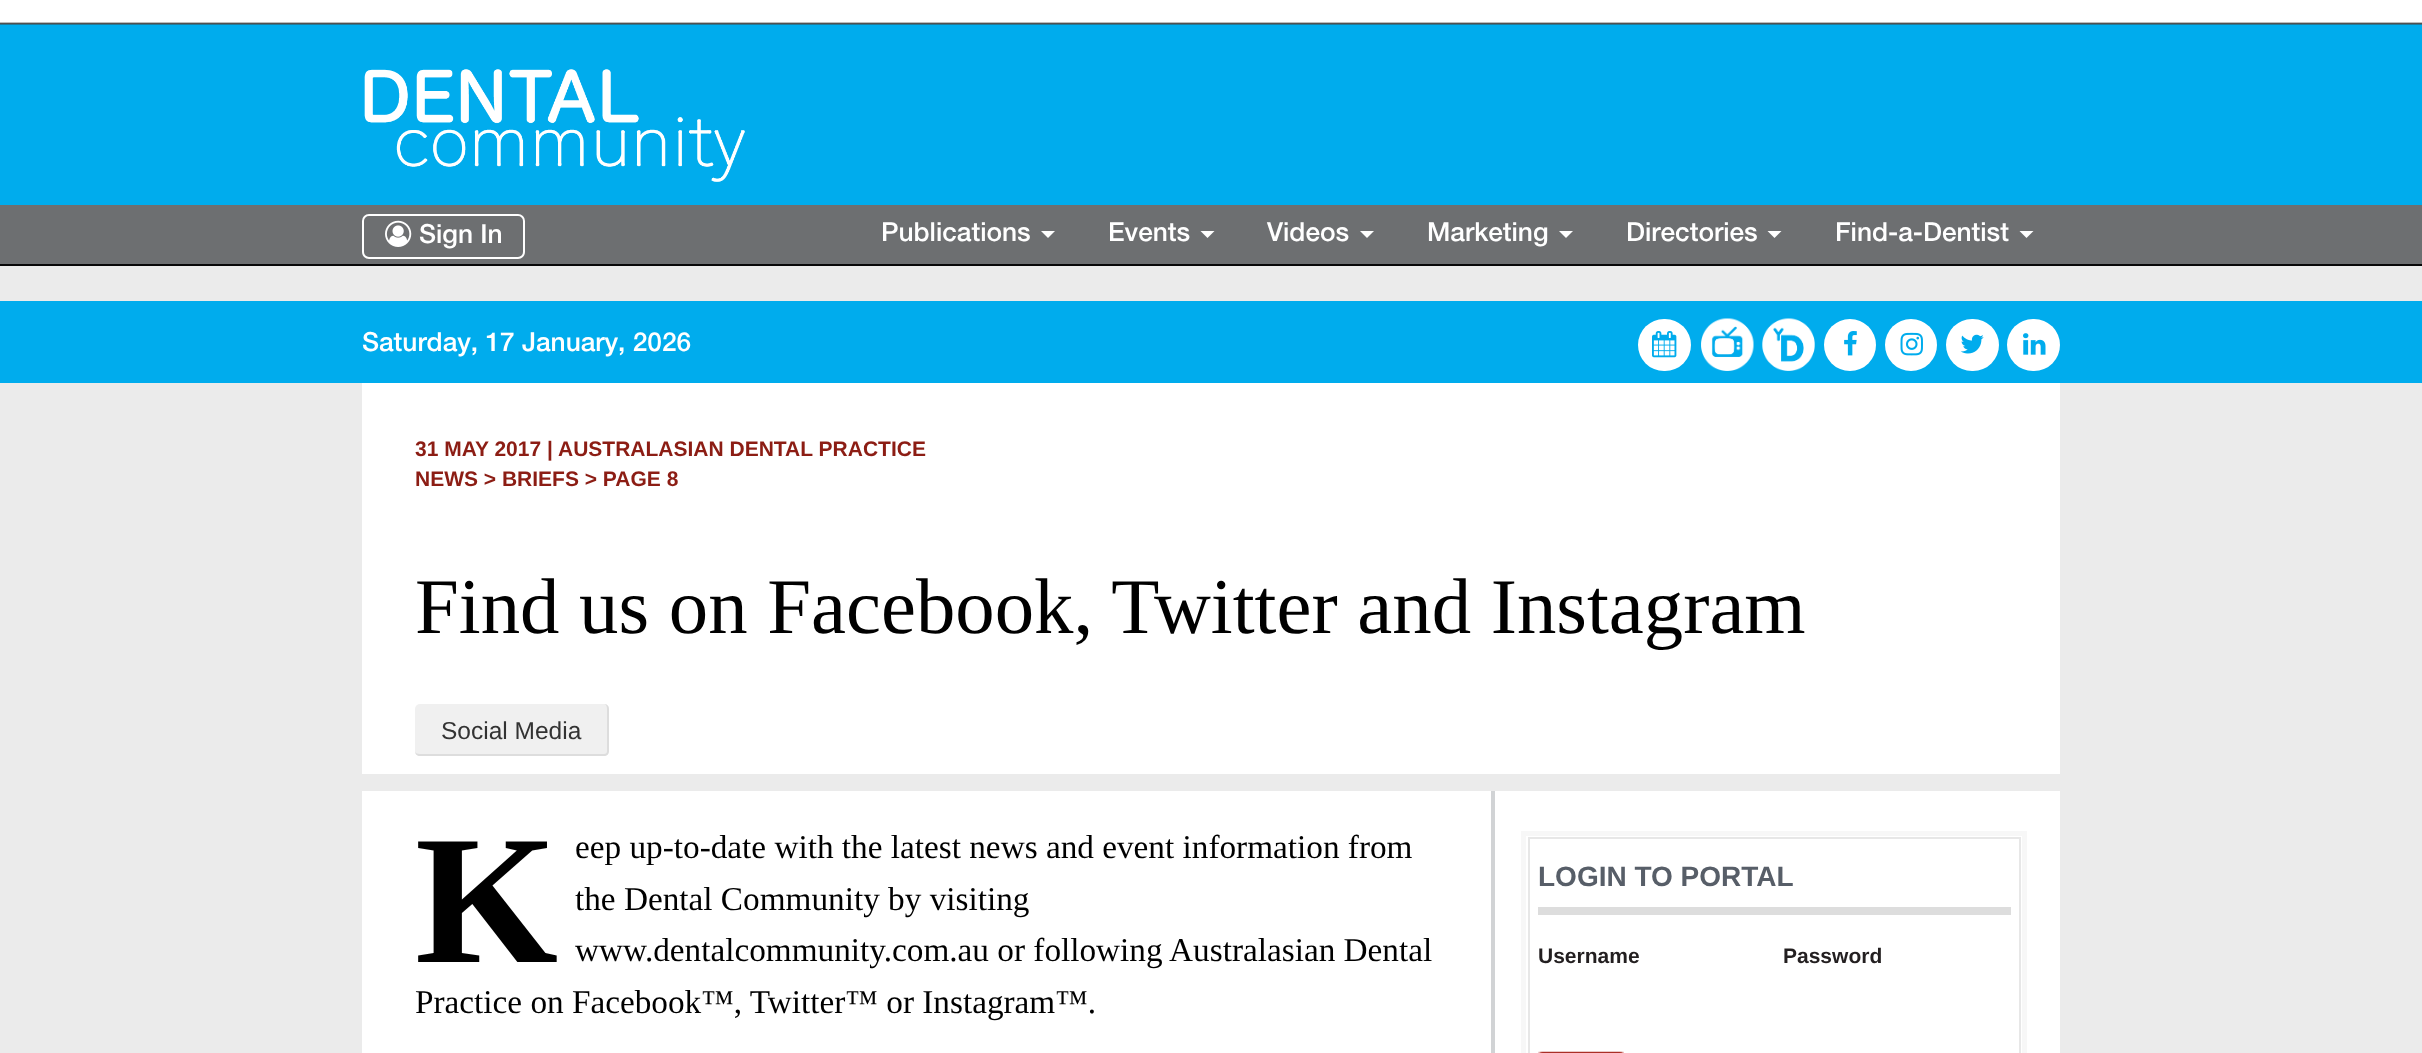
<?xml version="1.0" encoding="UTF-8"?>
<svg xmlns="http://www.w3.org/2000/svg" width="2422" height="1053">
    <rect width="100%" height="100%" fill="#EBEBEB"/>
    <rect x="0" y="24" width="2422" height="181" fill="#00ACED"/>
    <image x="0" y="0" width="2422" height="25" href="img_01.png"/>
    <image x="364" y="69" width="381" height="113" href="img_02.png"/>
    <rect x="0" y="205" width="2422" height="59" fill="#6D6F71"/>
    <rect x="0" y="264" width="2422" height="2" fill="#080808"/>
    <rect x="363" y="215" width="161" height="43" rx="6" fill="none" stroke="#FFFFFF" stroke-width="2"/>
    <image x="385" y="220" width="27" height="27" href="img_03.png"/>
    <text x="419" y="243" font-family="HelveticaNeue" font-size="26.25" font-weight="500" fill="#FFFFFF">Sign In</text>
    <text x="881" y="241" font-family="HelveticaNeue" font-size="26.25" font-weight="500" fill="#FFFFFF">Publications</text>
    <path d="M 1041 231 H 1055 L 1048 238 Z" fill="#FFFFFF"/>
    <text x="1108" y="241" font-family="HelveticaNeue" font-size="26.25" font-weight="500" fill="#FFFFFF">Events</text>
    <path d="M 1200.5 231 H 1214.5 L 1207.5 238 Z" fill="#FFFFFF"/>
    <text x="1267" y="241" font-family="HelveticaNeue" font-size="26.25" font-weight="500" fill="#FFFFFF">Videos</text>
    <path d="M 1360 231 H 1374 L 1367 238 Z" fill="#FFFFFF"/>
    <text x="1427" y="241" font-family="HelveticaNeue" font-size="26.25" font-weight="500" fill="#FFFFFF">Marketing</text>
    <path d="M 1559 231 H 1573 L 1566 238 Z" fill="#FFFFFF"/>
    <text x="1626" y="241" font-family="HelveticaNeue" font-size="26.25" font-weight="500" fill="#FFFFFF">Directories</text>
    <path d="M 1767.5 231 H 1781.5 L 1774.5 238 Z" fill="#FFFFFF"/>
    <text x="1835" y="241" font-family="HelveticaNeue" font-size="26.25" font-weight="500" fill="#FFFFFF">Find-a-Dentist</text>
    <path d="M 2019.5 231 H 2033.5 L 2026.5 238 Z" fill="#FFFFFF"/>
    <rect x="0" y="301" width="2422" height="82" fill="#00ACED"/>
    <text x="362" y="351" font-family="HelveticaNeue" font-size="26.25" font-weight="500" fill="#FFFFFF">Saturday, 17 January, 2026</text>
    <rect x="1638" y="319" width="53" height="52" rx="26" fill="#FFFFFF"/>
    <image x="1652" y="331" width="25" height="27" href="img_04.png"/>
    <image x="1701" y="318" width="53" height="53" href="img_05.png"/>
    <image x="1762" y="318" width="53" height="53" href="img_06.png"/>
    <circle cx="1850" cy="345" r="26" fill="#FFFFFF"/>
    <image x="1844" y="331" width="13" height="25" href="img_07.png"/>
    <circle cx="1911" cy="345" r="26" fill="#FFFFFF"/>
    <image x="1900" y="332" width="23" height="24" href="img_08.png"/>
    <rect x="1946" y="319" width="53" height="52" rx="26" fill="#FFFFFF"/>
    <image x="1960" y="334" width="24" height="20" href="img_09.png"/>
    <rect x="2007" y="319" width="53" height="52" rx="26" fill="#FFFFFF"/>
    <image x="2023" y="333" width="23" height="22" href="img_10.png"/>
    <rect x="362" y="383" width="1698" height="391" fill="#FFFFFF"/>
    <text x="415" y="456" font-family="Liberation Sans" font-size="21" font-weight="700" fill="#8C1D14">31 MAY 2017 |</text>
    <text x="558" y="456" font-family="Liberation Sans" font-size="21" font-weight="700" fill="#8C1D14">AUSTRALASIAN DENTAL PRACTICE</text>
    <text x="415" y="486" font-family="Liberation Sans" font-size="21" font-weight="700" fill="#8C1D14">NEWS &gt; BRIEFS &gt; PAGE 8</text>
    <text x="415" y="633" font-family="Liberation Serif" font-size="78.75" fill="#000000">Find us on Facebook, Twitter and Instagram</text>
    <rect x="415" y="704" width="194" height="52" rx="5" fill="#F0F0F0"/>
    <path d="M 420 704 H 604 C 607 704 609 706 609 709 V 751 C 609 754 607 756 604 756 H 420 C 417 756 415 754 415 751 V 709 C 415 706 417 704 420 704 Z M 420 704 H 604 C 606 704 607 706 607 709 V 751 C 607 753 606 754 604 754 H 420 C 417 754 415 753 415 751 V 709 C 415 706 417 704 420 704 Z" fill="#DDDDDD" fill-rule="evenodd"/>
    <text x="441" y="739" font-family="Liberation Sans" font-size="24.5" fill="#333333">Social Media</text>
    <rect x="362" y="791" width="1698" height="262" fill="#FFFFFF"/>
    <rect x="1491" y="791" width="4" height="262" fill="#D1D3D5"/>
    <text x="415" y="962" font-family="Liberation Serif" font-size="184" font-weight="700" fill="#000000">K</text>
    <text font-family="Liberation Serif" font-size="33.25" fill="#000000">
        <tspan x="575" y="858">eep up-to-date with the latest news and event information from</tspan>
        <tspan x="575" y="910">the Dental Community by visiting</tspan>
        <tspan x="575" y="961">www.dentalcommunity.com.au or following Australasian Dental</tspan>
    </text>
    <text x="415" y="1013" font-family="Liberation Serif" font-size="33.25" fill="#000000">Practice on Facebook™, Twitter™ or Instagram™.</text>
    <rect x="1523.5" y="833.5" width="501" height="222" fill="none" stroke="#F7F7F7" stroke-width="5"/>
    <rect x="1529" y="838" width="491" height="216" fill="none" stroke="#E7E7E7" stroke-width="2"/>
    <rect x="1538" y="907" width="473" height="8" fill="#DDDDDD"/>
    <text x="1538" y="886" font-family="Liberation Sans" font-size="28" font-weight="700" fill="#575E68">LOGIN TO PORTAL</text>
    <text x="1538" y="963" font-family="Liberation Sans" font-size="21" font-weight="700" fill="#231F20">Username</text>
    <text x="1783" y="963" font-family="Liberation Sans" font-size="21" font-weight="700" fill="#231F20">Password</text>
    <image x="1538" y="1051" width="86" height="2" href="img_11.png"/>
</svg>
